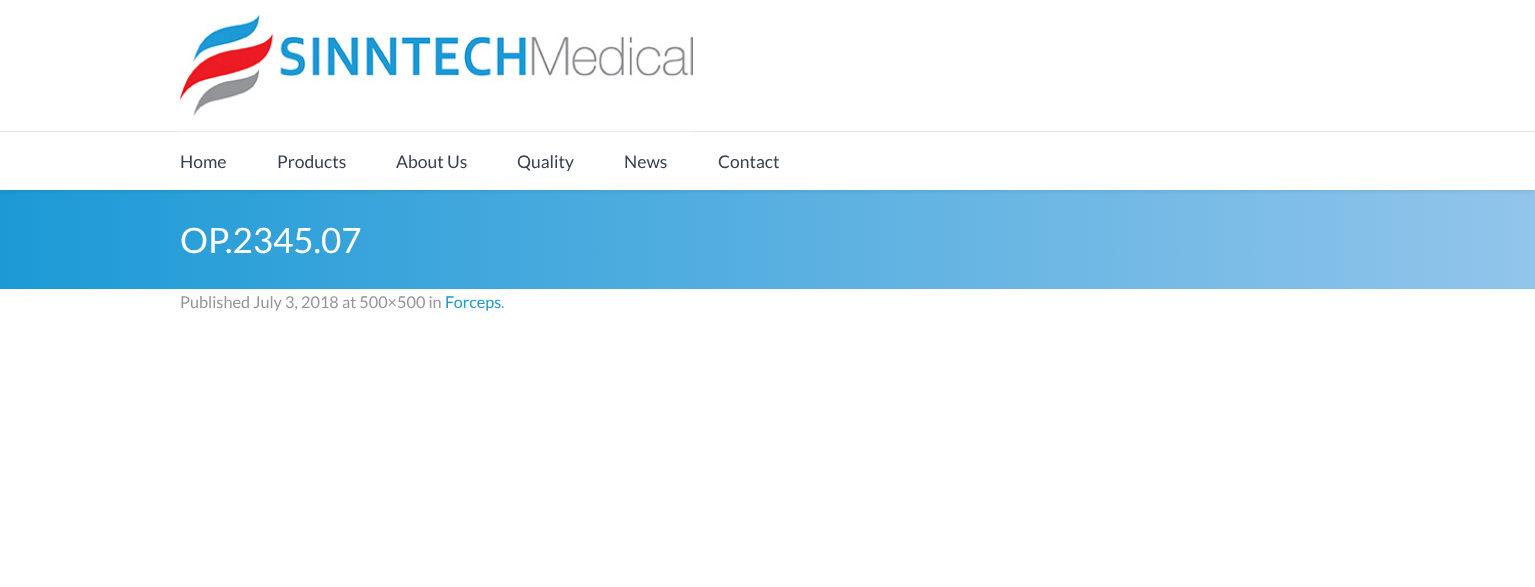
<?xml version="1.0" encoding="UTF-8"?>
<svg xmlns="http://www.w3.org/2000/svg" width="1535" height="587">
    <defs>
        <linearGradient id="g1" gradientUnits="userSpaceOnUse" x1="0" y1="239" x2="1535" y2="239"><stop offset="0" stop-color="#1C9AD6"/><stop offset="1" stop-color="#92C5EB"/></linearGradient>
        <clipPath id="clip1"><rect x="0" y="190" width="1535" height="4"/></clipPath>
        <filter id="blur1" x="-50%" y="-200%" width="200%" height="500%"><feGaussianBlur stdDeviation="3"/></filter>
    </defs>
    <rect width="100%" height="100%" fill="#FFFFFF"/>
    <rect x="0" y="190" width="1535" height="99" fill="url(#g1)"/>
    <g clip-path="url(#clip1)">
        <rect x="0" y="1" width="1535" height="190" fill="#000000" fill-opacity="0.1" filter="url(#blur1)"/>
    </g>
    <rect x="0" y="131" width="1535" height="1" fill="#E5E5E5"/>
    <image x="180" y="14" width="513" height="118" href="img_01.png"/>
    <text x="180" y="168" font-family="Lato" font-size="17.5" fill="#373F50">Home</text>
    <text x="277" y="168" font-family="Lato" font-size="17.5" fill="#373F50">Products</text>
    <text x="396" y="168" font-family="Lato" font-size="17.5" fill="#373F50">About Us</text>
    <text x="517" y="168" font-family="Lato" font-size="17.5" fill="#373F50">Quality</text>
    <text x="624" y="168" font-family="Lato" font-size="17.5" fill="#373F50">News</text>
    <text x="718" y="168" font-family="Lato" font-size="17.5" fill="#373F50">Contact</text>
    <text x="180" y="253" font-family="Lato" font-size="35" fill="#FFFFFF">OP.2345.07</text>
    <text x="180" y="308" font-family="Lato" font-size="16.25" fill="#959595">Published July 3, 2018 at 500×500 in</text>
    <text x="445" y="308" font-family="Lato" font-size="16.25" fill="#1C9AD6">Forceps</text>
    <text x="501" y="308" font-family="Lato" font-size="16.25" fill="#959595">.</text>
</svg>
